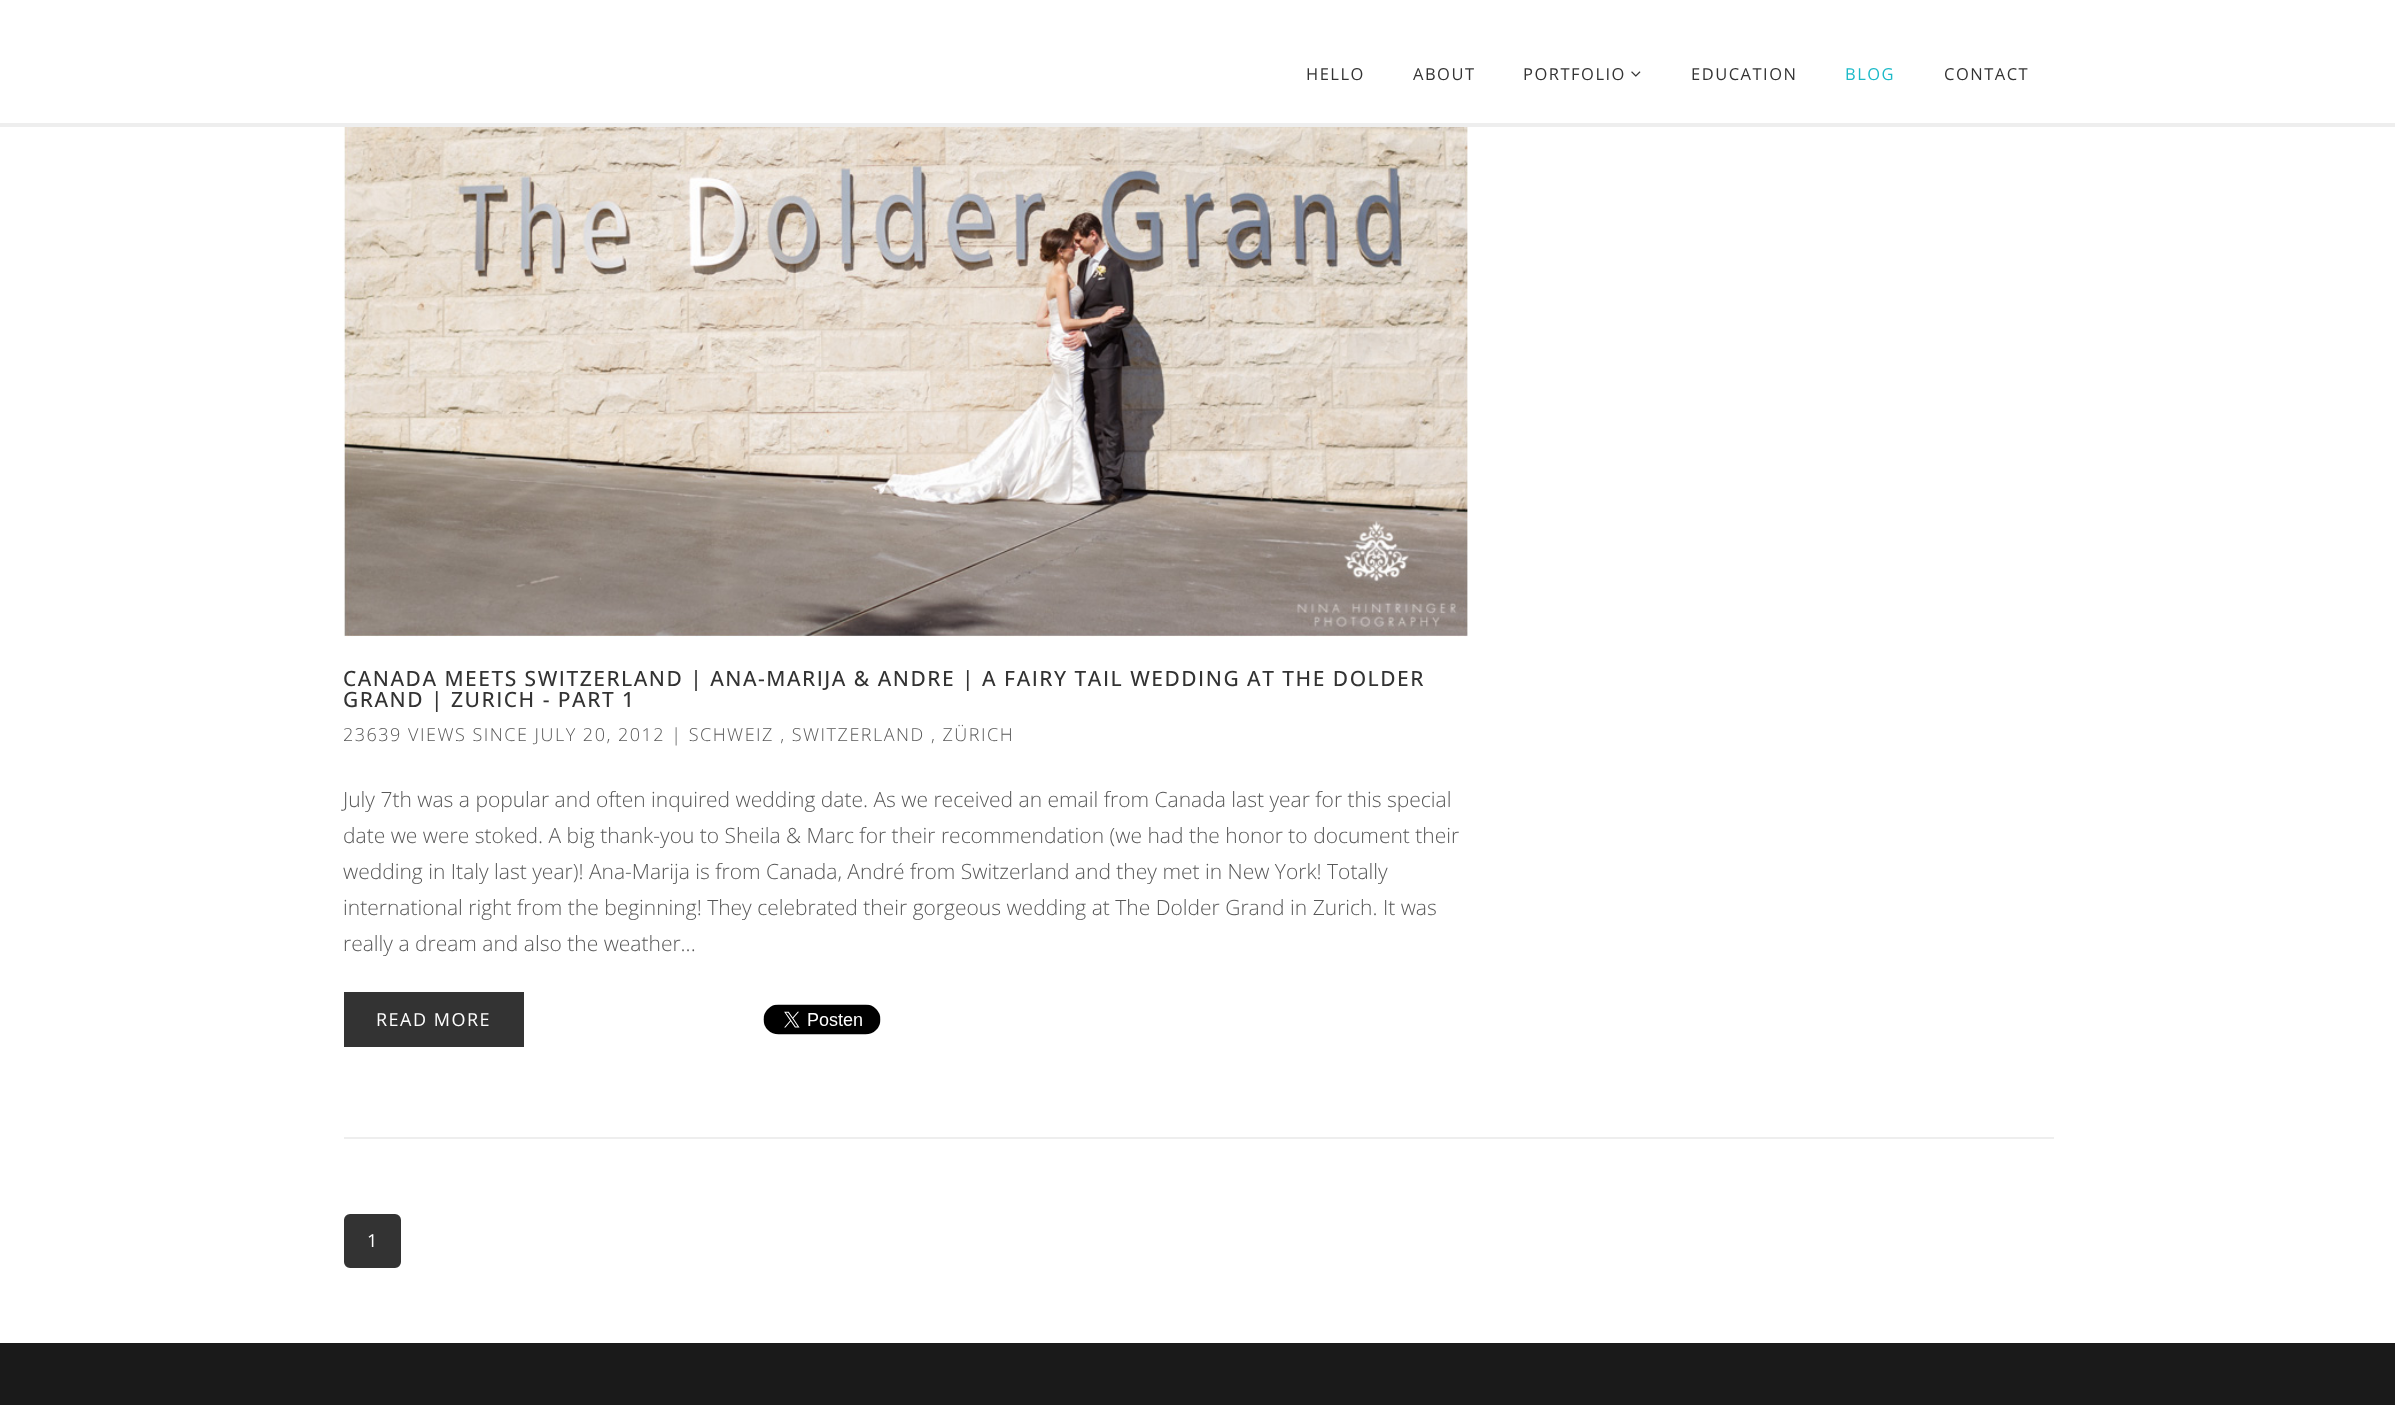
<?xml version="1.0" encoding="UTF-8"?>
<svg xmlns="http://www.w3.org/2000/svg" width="2395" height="1405">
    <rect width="100%" height="100%" fill="#FFFFFF"/>
    <rect x="0" y="123" width="2395" height="4" fill="#EEEEEE"/>
    <text x="1306" y="80" font-family="Open Sans" font-size="16.5" letter-spacing="1.5" fill="#333333">HELLO</text>
    <text x="1413" y="80" font-family="Open Sans" font-size="16.5" letter-spacing="1.5" fill="#333333">ABOUT</text>
    <text x="1523" y="80" font-family="Open Sans" font-size="16.5" letter-spacing="1.5" fill="#333333">PORTFOLIO</text>
    <image x="1631" y="71" width="10" height="6" href="img_01.png"/>
    <text x="1691" y="80" font-family="Open Sans" font-size="16.5" letter-spacing="1.5" fill="#333333">EDUCATION</text>
    <text x="1845" y="80" font-family="Open Sans" font-size="16.5" letter-spacing="1.5" fill="#1CBAC8">BLOG</text>
    <text x="1944" y="80" font-family="Open Sans" font-size="16.5" letter-spacing="1.5" fill="#333333">CONTACT</text>
    <image x="343" y="127" width="1125" height="510" href="img_02.png"/>
    <text font-family="Open Sans" font-size="21" font-weight="500" letter-spacing="1.5" fill="#333333">
        <tspan x="343" y="686">CANADA MEETS SWITZERLAND | ANA-MARIJA &amp; ANDRE | A FAIRY TAIL WEDDING AT THE DOLDER</tspan>
        <tspan x="343" y="707">GRAND | ZURICH - PART 1</tspan>
    </text>
    <text x="343" y="741" font-family="Open Sans" font-size="18" font-weight="300" letter-spacing="1.5" fill="#585858">23639 VIEWS SINCE JULY 20, 2012 | SCHWEIZ , SWITZERLAND , ZÜRICH</text>
    <text font-family="Open Sans" font-size="21" font-weight="300" fill="#585858">
        <tspan x="343" y="807">July 7th was a popular and often inquired wedding date. As we received an email from Canada last year for this special</tspan>
        <tspan x="343" y="843">date we were stoked. A big thank-you to Sheila &amp; Marc for their recommendation (we had the honor to document their</tspan>
        <tspan x="343" y="879">wedding in Italy last year)! Ana-Marija is from Canada, André from Switzerland and they met in New York! Totally</tspan>
        <tspan x="343" y="915">international right from the beginning! They celebrated their gorgeous wedding at The Dolder Grand in Zurich. It was</tspan>
        <tspan x="343" y="951">really a dream and also the weather...</tspan>
    </text>
    <rect x="344" y="992" width="180" height="55" fill="#333333"/>
    <text x="376" y="1026" font-family="Open Sans" font-size="18" letter-spacing="1.5" fill="#FFFFFF">READ MORE</text>
    <image x="763" y="1004" width="118" height="31" href="img_03.png"/>
    <rect x="344" y="1137" width="1710" height="2" fill="#EEEEEE"/>
    <rect x="345" y="1215" width="55" height="52" rx="5" fill="#333333" stroke="#333333" stroke-width="2"/>
    <text x="367" y="1247" font-family="Open Sans" font-size="18" fill="#FFFFFF">1</text>
    <rect x="0" y="1343" width="2395" height="62" fill="#1A1A1A"/>
</svg>
